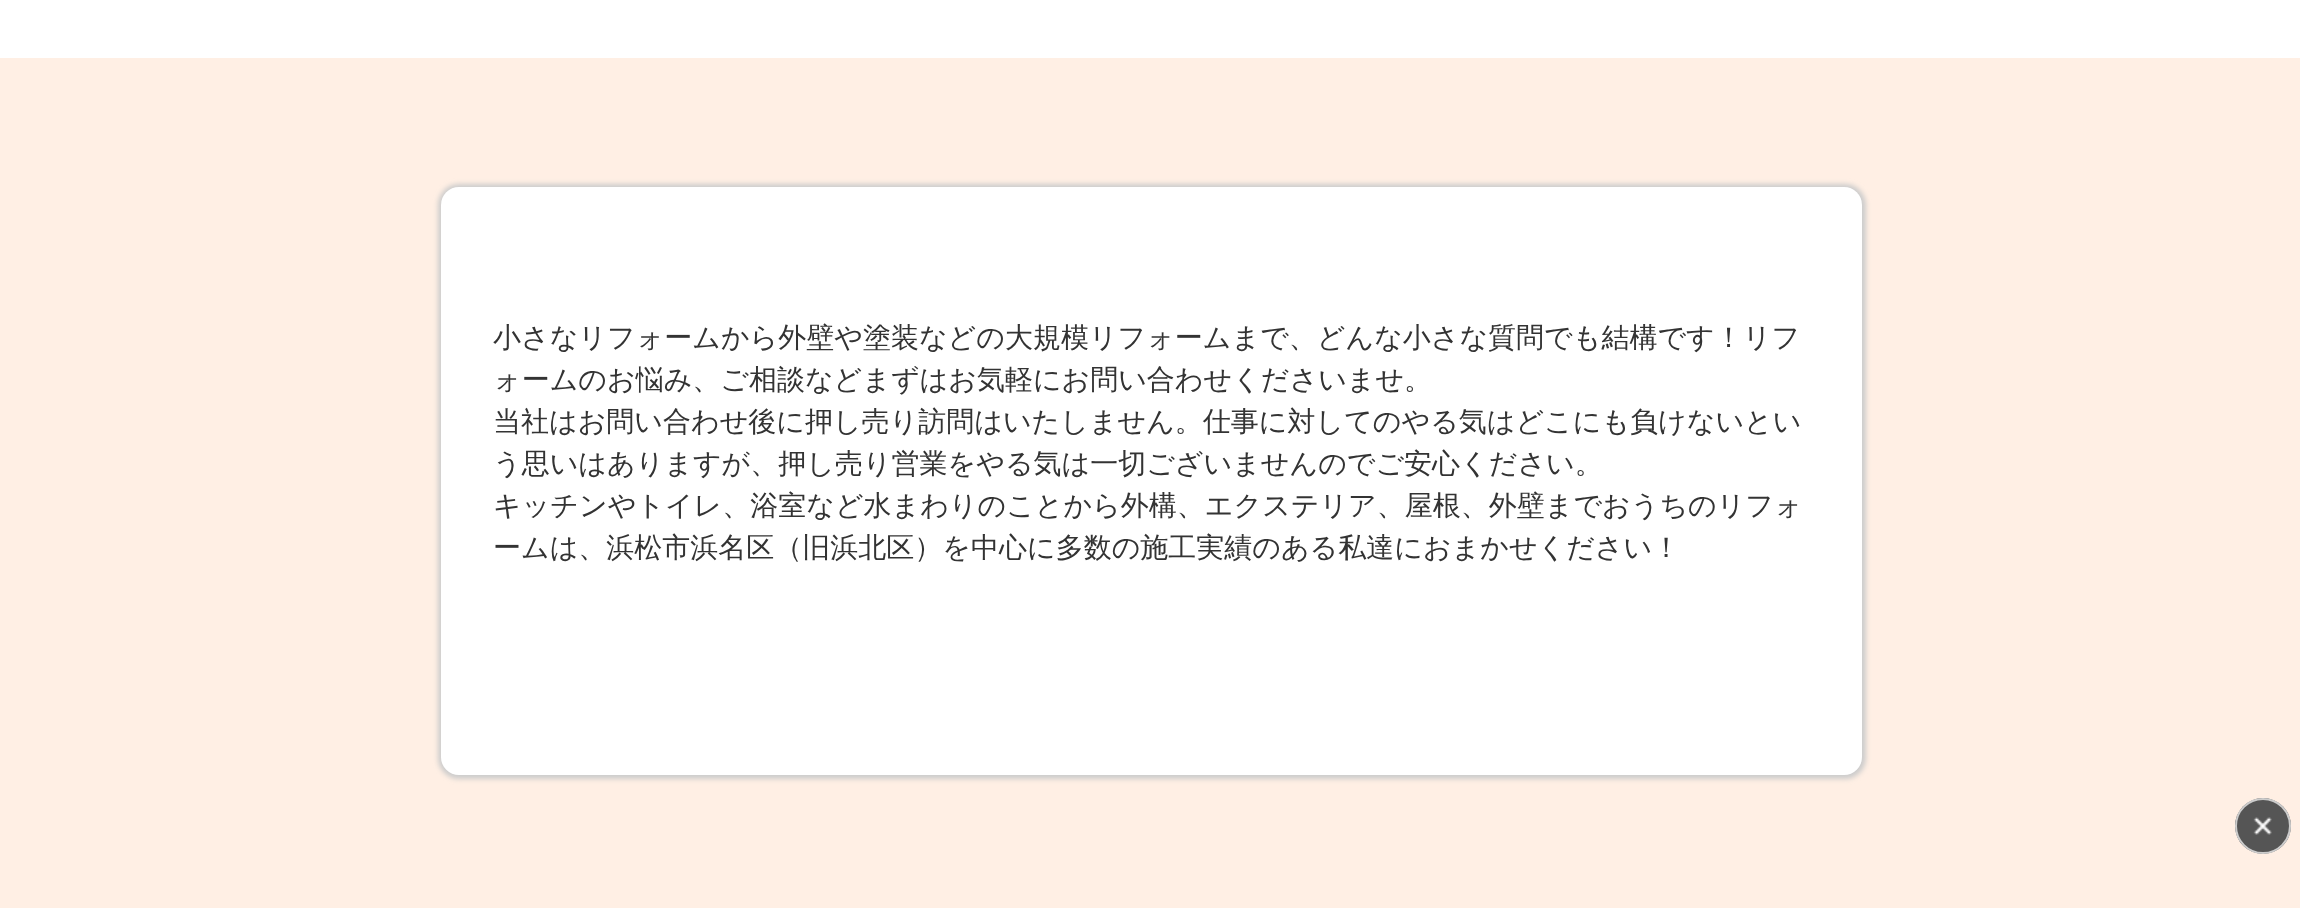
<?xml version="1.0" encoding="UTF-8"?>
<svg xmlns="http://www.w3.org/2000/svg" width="2300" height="908">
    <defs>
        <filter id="blur1" x="-50%" y="-200%" width="200%" height="500%"><feGaussianBlur stdDeviation="2.5"/></filter>
    </defs>
    <rect width="100%" height="100%" fill="#FFFFFF"/>
    <rect x="0" y="58" width="2300" height="850" fill="#FFEFE4"/>
    <rect x="438" y="184" width="1428" height="595" rx="21" fill="#CCCCCC" filter="url(#blur1)"/>
    <rect x="441" y="187" width="1421" height="588" rx="18" fill="#FFFFFF"/>
    <text font-family="WenQuanYi Zen Hei" font-size="28" font-weight="500" fill="#333333">
        <tspan x="493" y="347">小さなリフォームから外壁や塗装などの大規模リフォームまで、どんな小さな質問でも結構です！リフ</tspan>
        <tspan x="493" y="389">ォームのお悩み、ご相談などまずはお気軽にお問い合わせくださいませ。</tspan>
        <tspan x="493" y="431">当社はお問い合わせ後に押し売り訪問はいたしません。仕事に対してのやる気はどこにも負けないとい</tspan>
        <tspan x="493" y="473">う思いはありますが、押し売り営業をやる気は一切ございませんのでご安心ください。</tspan>
        <tspan x="493" y="515">キッチンやトイレ、浴室など水まわりのことから外構、エクステリア、屋根、外壁までおうちのリフォ</tspan>
        <tspan x="493" y="557">ームは、浜松市浜名区（旧浜北区）を中心に多数の施工実績のある私達におまかせください！</tspan>
    </text>
    <circle cx="2263" cy="826" r="28" fill="#555555"/>
    <image x="2253" y="817" width="19" height="18" href="img_01.png"/>
    <circle cx="2263" cy="826" r="27" fill="none" stroke="#CCCCCC" stroke-width="2"/>
</svg>
